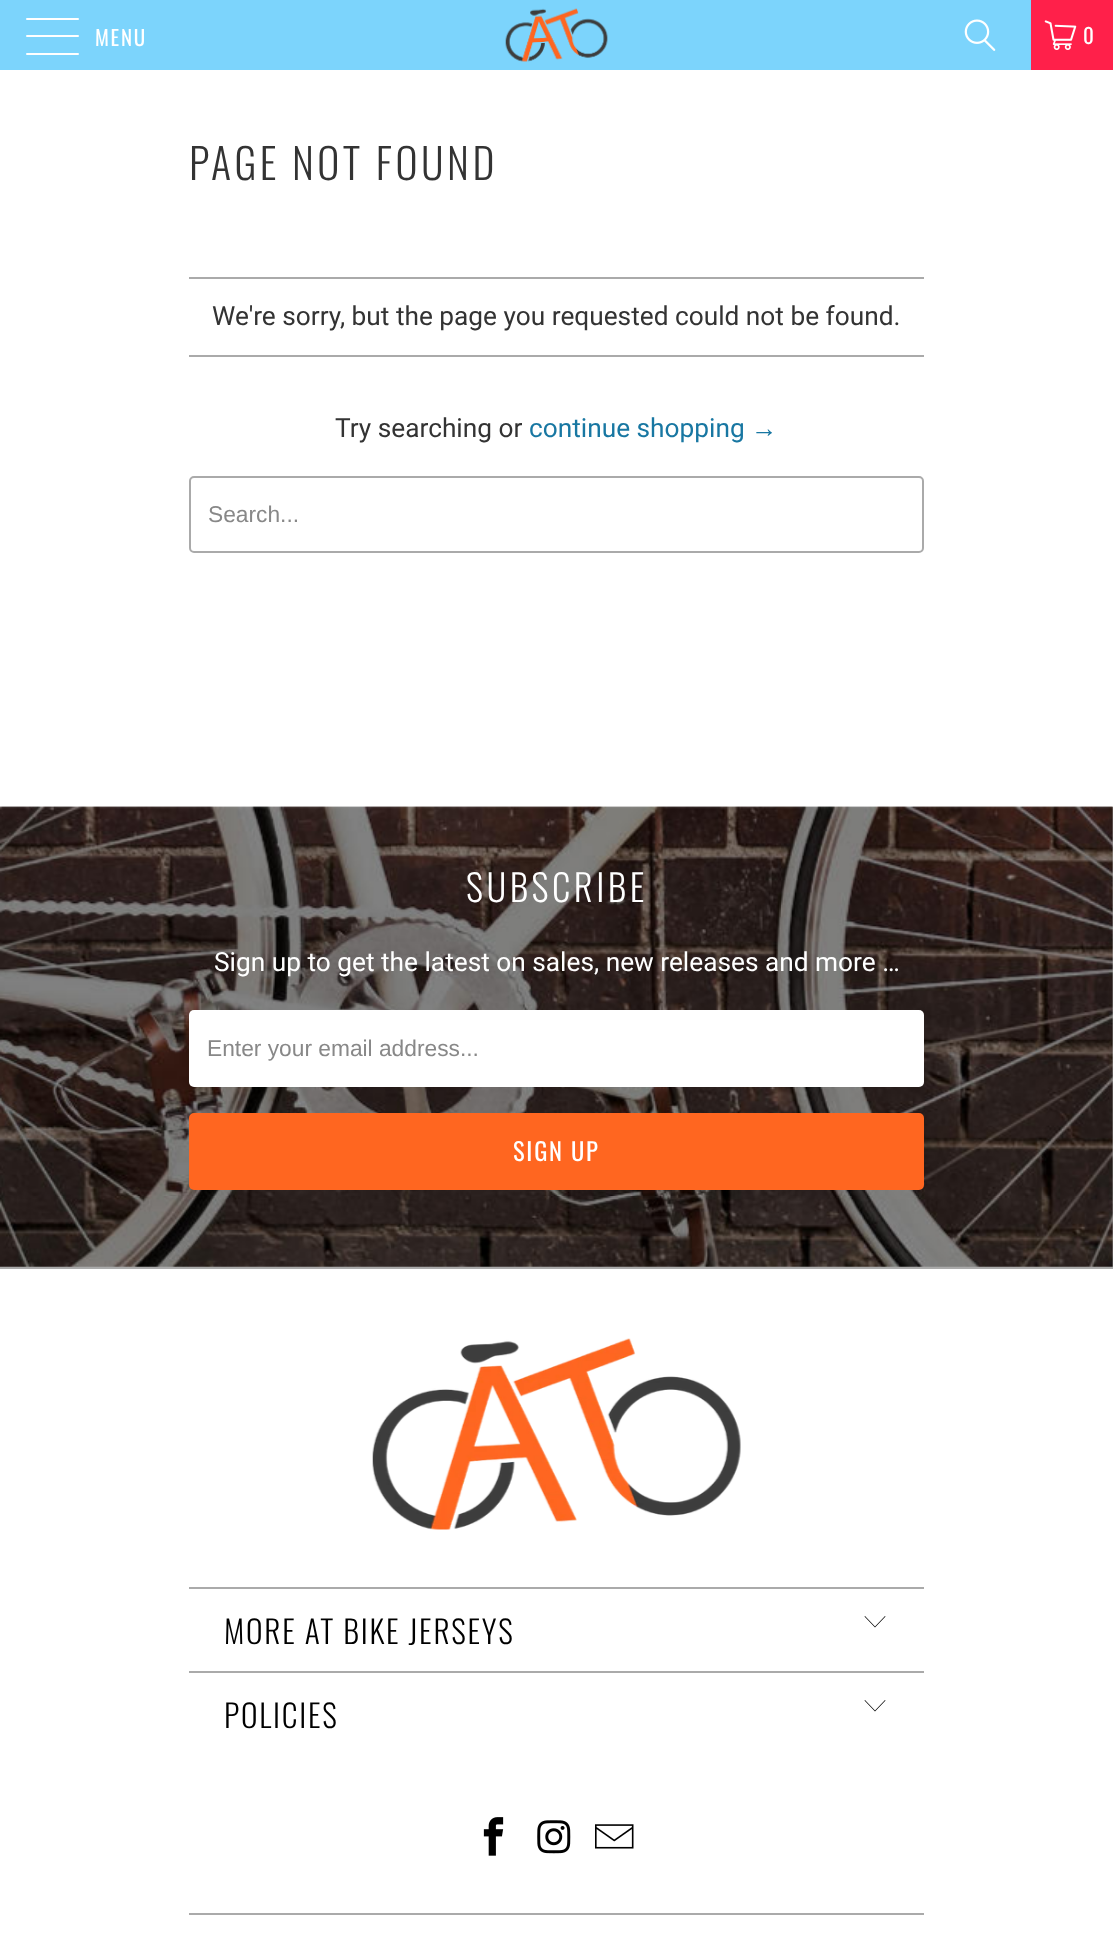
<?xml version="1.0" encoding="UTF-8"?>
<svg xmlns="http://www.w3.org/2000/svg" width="1113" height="1954">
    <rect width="100%" height="100%" fill="#FFFFFF"/>
    <rect x="0" y="0" width="1031" height="70" fill="#7CD4FC"/>
    <rect x="26" y="18" width="53" height="2" rx="1" fill="#FFFFFF"/>
    <rect x="26" y="35" width="53" height="2" rx="1" fill="#FFFFFF"/>
    <rect x="26" y="53" width="53" height="2" rx="1" fill="#FFFFFF"/>
    <text x="95" y="46" font-family="Oswald" font-size="21" letter-spacing="1.75" fill="#FFFFFF">MENU</text>
    <image x="505" y="8" width="103" height="54" href="img_01.png"/>
    <image x="964" y="19" width="32" height="32" href="img_02.png"/>
    <rect x="1031" y="0" width="82" height="70" fill="#FF204A"/>
    <image x="1044" y="20" width="33" height="30" href="img_03.png"/>
    <text x="1083" y="44" font-family="Oswald" font-size="21" letter-spacing="1.75" fill="#FFFFFF">0</text>
    <text x="189" y="180" font-family="Oswald" font-size="42" font-weight="300" letter-spacing="3.5" fill="#333333">PAGE NOT FOUND</text>
    <rect x="189" y="277" width="735" height="2" fill="#AAAAAA"/>
    <rect x="189" y="355" width="735" height="2" fill="#AAAAAA"/>
    <text x="212" y="325" font-family="Roboto" font-size="26.25" fill="#333333">We're sorry, but the page you requested could not be found.</text>
    <text x="335" y="437" font-family="Roboto" font-size="26.25" fill="#333333">Try searching or</text>
    <text x="529" y="437" font-family="Roboto" font-size="26.25" fill="#1877A2">continue shopping</text>
    <text x="751" y="437" font-family="Liberation Sans" font-size="26.25" fill="#1877A2">→</text>
    <rect x="190" y="477" width="733" height="75" rx="4" fill="none" stroke="#AAAAAA" stroke-width="2"/>
    <text x="208" y="522" font-family="Liberation Sans" font-size="22.75" fill="#888888">Search...</text>
    <rect x="0" y="807" width="1113" height="462" fill="#AAAAAA"/>
    <image x="0" y="806" width="1113" height="461" href="img_04.png"/>
    <text x="466" y="902" font-family="Oswald" font-size="36.75" font-weight="300" letter-spacing="3.5" fill="#FFFFFF">SUBSCRIBE</text>
    <text x="214" y="971" font-family="Roboto" font-size="26.25" fill="#FFFFFF">Sign up to get the latest on sales, new releases and more …</text>
    <rect x="189" y="1010" width="735" height="77" rx="5" fill="#FFFFFF"/>
    <text x="207" y="1056" font-family="Liberation Sans" font-size="22.75" fill="#888888">Enter your email address...</text>
    <rect x="190" y="1114" width="733" height="75" rx="4" fill="#FF6620" stroke="#FF6620" stroke-width="2"/>
    <text x="513" y="1161" font-family="Oswald" font-size="24.5" letter-spacing="1.75" fill="#FFFFFF">SIGN UP</text>
    <image x="372" y="1338" width="369" height="192" href="img_05.png"/>
    <rect x="189" y="1587" width="735" height="2" fill="#AAAAAA"/>
    <text x="224" y="1644" font-family="Oswald" font-size="31.5" font-weight="300" letter-spacing="1.75" fill="#000000">MORE AT BIKE JERSEYS</text>
    <path d="M 875 1627.5 L 864.5 1616.5 L 865 1616 L 875 1626.5 L 885 1616 L 885.5 1616.5 Z" fill="#000000"/>
    <rect x="189" y="1671" width="735" height="2" fill="#AAAAAA"/>
    <text x="224" y="1728" font-family="Oswald" font-size="31.5" font-weight="300" letter-spacing="1.75" fill="#000000">POLICIES</text>
    <path d="M 875 1711.5 L 864.5 1700.5 L 865 1700 L 875 1710.5 L 885 1700 L 885.5 1700.5 Z" fill="#000000"/>
    <image x="483" y="1817" width="21" height="39" href="img_06.png"/>
    <image x="537" y="1820" width="34" height="34" href="img_07.png"/>
    <image x="595" y="1824" width="39" height="25" href="img_08.png"/>
    <rect x="189" y="1913" width="735" height="2" fill="#AAAAAA"/>
</svg>
